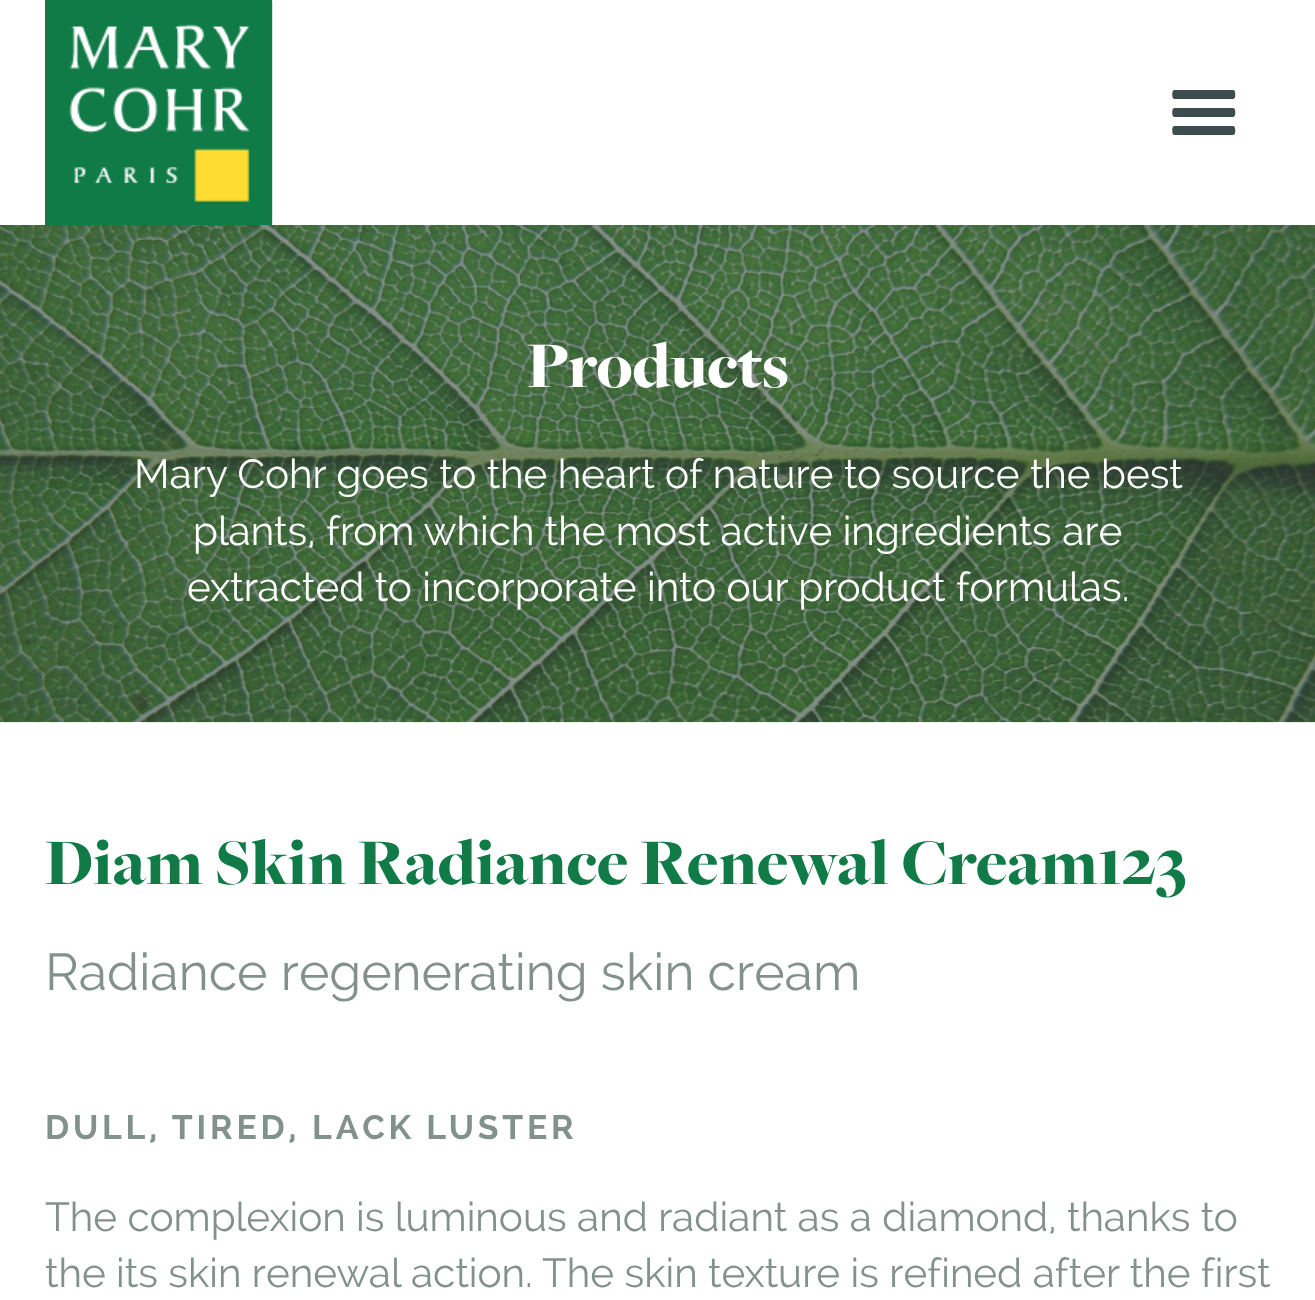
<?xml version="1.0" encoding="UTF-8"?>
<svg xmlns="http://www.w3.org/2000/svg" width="1315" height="1300">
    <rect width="100%" height="100%" fill="#FFFFFF"/>
    <rect x="45" y="0" width="227" height="225" fill="#107B47"/>
    <image x="69" y="0" width="204" height="225" href="img_01.png"/>
    <image x="1172" y="90" width="64" height="45" href="img_02.png"/>
    <rect x="0" y="225" width="1315" height="497" fill="#3F434A"/>
    <image x="0" y="225" width="1315" height="498" href="img_03.png"/>
    <text x="527" y="387" font-family="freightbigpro" font-size="67.5" font-weight="900" fill="#FFFFFF">Products</text>
    <text x="134" y="488" font-family="Raleway" font-size="40.5" fill="#FFFFFF">Mary Cohr goes to the heart of nature to source the best</text>
    <text x="193" y="545" font-family="Raleway" font-size="40.5" fill="#FFFFFF">plants, from which the most active ingredients are</text>
    <text x="187" y="601" font-family="Raleway" font-size="40.5" fill="#FFFFFF">extracted to incorporate into our product formulas.</text>
    <text x="45" y="884" font-family="freightbigpro" font-size="67.5" font-weight="900" fill="#107B47">Diam Skin Radiance Renewal Cream123</text>
    <text x="45" y="990" font-family="Raleway" font-size="51.75" fill="#83918C">Radiance regenerating skin cream</text>
    <text x="45" y="1139" font-family="Raleway" font-size="33.75" font-weight="700" letter-spacing="3.75" fill="#83918C">DULL, TIRED, LACK LUSTER</text>
    <text font-family="Raleway" font-size="40.5" fill="#83918C">
        <tspan x="45" y="1231">The complexion is luminous and radiant as a diamond, thanks to</tspan>
        <tspan x="45" y="1287">the its skin renewal action. The skin texture is refined after the first</tspan>
    </text>
</svg>
